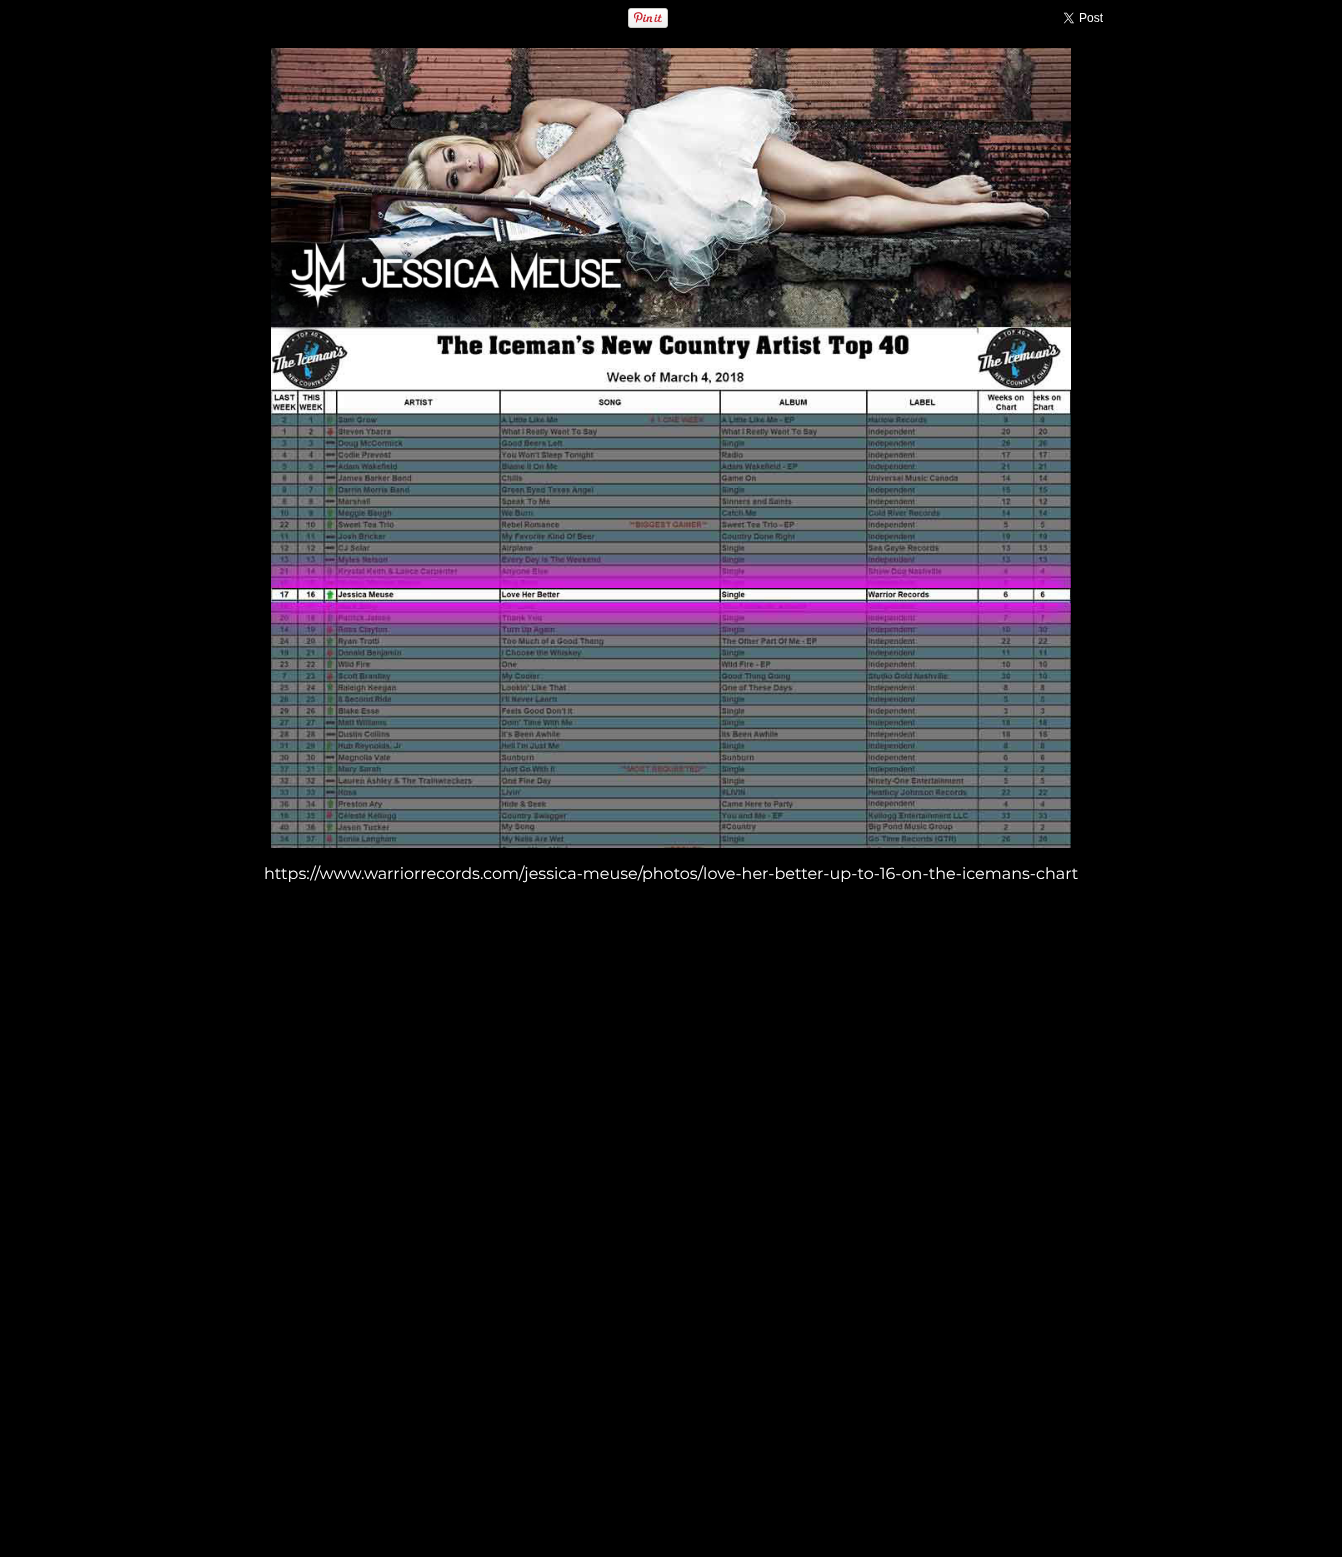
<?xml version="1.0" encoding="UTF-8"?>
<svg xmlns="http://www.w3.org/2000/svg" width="1342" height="1557">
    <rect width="100%" height="100%" fill="#000000"/>
    <image x="628" y="8" width="40" height="20" href="img_01.png"/>
    <image x="1063" y="12" width="40" height="12" href="img_02.png"/>
    <image x="271" y="48" width="800" height="800" href="img_03.png"/>
    <text x="264" y="879" font-family="Montserrat" font-size="16" font-weight="100" fill="#FFFFFF">https://www.warriorrecords.com/jessica-meuse/photos/love-her-better-up-to-16-on-the-icemans-chart</text>
</svg>
